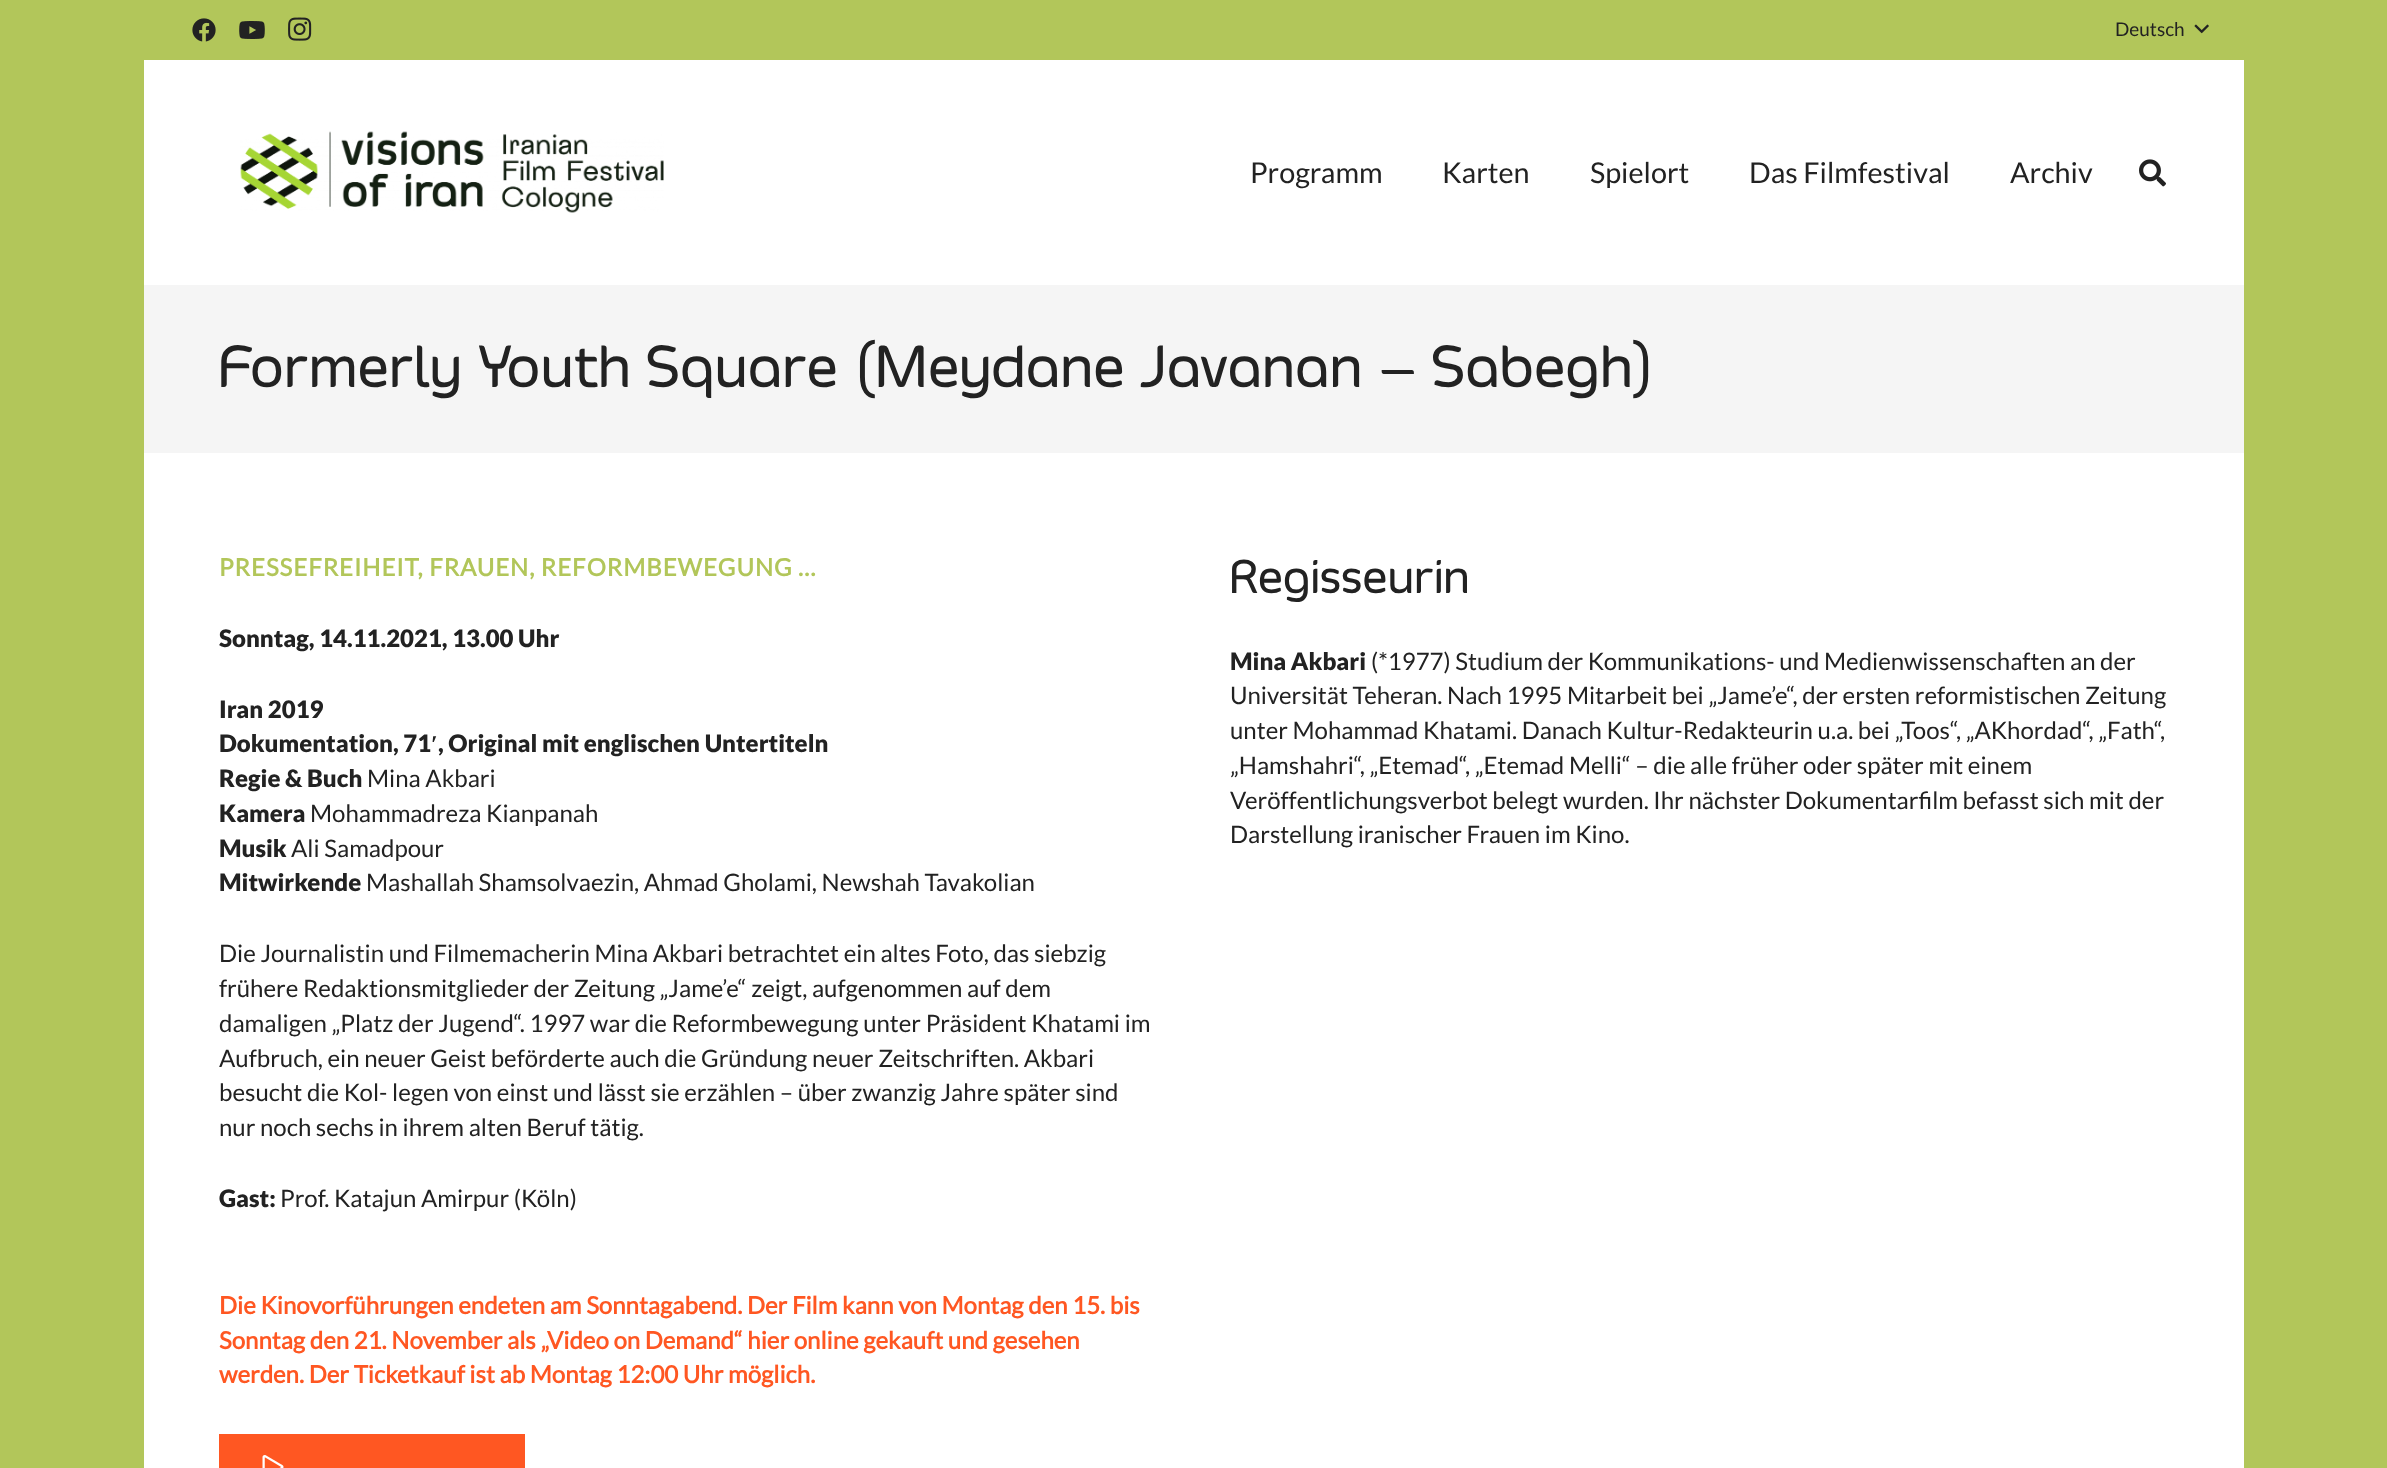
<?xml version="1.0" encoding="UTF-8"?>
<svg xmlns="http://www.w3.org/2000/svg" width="2387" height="1468">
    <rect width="100%" height="100%" fill="#B2C65A"/>
    <rect x="144" y="60" width="2100" height="1408" fill="#FFFFFF"/>
    <image x="192" y="18" width="24" height="24" href="img_01.png"/>
    <image x="239" y="21" width="26" height="18" href="img_02.png"/>
    <image x="288" y="17" width="24" height="24" href="img_03.png"/>
    <text x="2115" y="36" font-family="Lato" font-size="19" fill="#222222">Deutsch</text>
    <image x="2194" y="24" width="15" height="10" href="img_04.png"/>
    <image x="240" y="131" width="424" height="82" href="img_05.png"/>
    <text x="1250" y="183" font-family="Lato" font-size="28.75" fill="#222222">Programm</text>
    <text x="1442" y="183" font-family="Lato" font-size="28.75" fill="#222222">Karten</text>
    <text x="1590" y="183" font-family="Lato" font-size="28.75" fill="#222222">Spielort</text>
    <text x="1749" y="183" font-family="Lato" font-size="28.75" fill="#222222">Das Filmfestival</text>
    <text x="2010" y="183" font-family="Lato" font-size="28.75" fill="#222222">Archiv</text>
    <image x="2139" y="159" width="27" height="28" href="img_06.png"/>
    <rect x="144" y="285" width="2100" height="168" fill="#F5F5F5"/>
    <text x="219" y="387" font-family="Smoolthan" font-size="60" font-weight="500" fill="#222222">Formerly Youth Square (Meydane Javanan – Sabegh)</text>
    <text x="219" y="576" font-family="Lato" font-size="24" font-weight="700" letter-spacing="0.95" fill="#B2C65A">PRESSEFREIHEIT, FRAUEN, REFORMBEWEGUNG …</text>
    <text x="219" y="647" font-family="Lato" font-size="24" font-weight="900" fill="#222222">Sonntag, 14.11.2021, 13.00 Uhr</text>
    <text font-family="Lato" font-size="24" font-weight="900" fill="#222222">
        <tspan x="219" y="718">Iran 2019</tspan>
        <tspan x="219" y="752">Dokumentation, 71</tspan>
    </text>
    <text x="431" y="752" font-family="Liberation Serif" font-size="24" font-weight="700" fill="#222222">′</text>
    <text x="438" y="752" font-family="Lato" font-size="24" font-weight="900" fill="#222222">, Original mit englischen Untertiteln</text>
    <text x="219" y="787" font-family="Lato" font-size="24" font-weight="900" fill="#222222">Regie &amp; Buch</text>
    <text x="367" y="787" font-family="Lato" font-size="24" fill="#222222">Mina Akbari</text>
    <text x="219" y="822" font-family="Lato" font-size="24" font-weight="900" fill="#222222">Kamera</text>
    <text x="310" y="822" font-family="Lato" font-size="24" fill="#222222">Mohammadreza Kianpanah</text>
    <text x="219" y="857" font-family="Lato" font-size="24" font-weight="900" fill="#222222">Musik</text>
    <text x="291" y="857" font-family="Lato" font-size="24" fill="#222222">Ali Samadpour</text>
    <text x="219" y="891" font-family="Lato" font-size="24" font-weight="900" fill="#222222">Mitwirkende</text>
    <text x="366" y="891" font-family="Lato" font-size="24" fill="#222222">Mashallah Shamsolvaezin, Ahmad Gholami, Newshah Tavakolian</text>
    <text font-family="Lato" font-size="24" fill="#222222">
        <tspan x="219" y="962">Die Journalistin und Filmemacherin Mina Akbari betrachtet ein altes Foto, das siebzig</tspan>
        <tspan x="219" y="997">frühere Redaktionsmitglieder der Zeitung „Jame’e“ zeigt, aufgenommen auf dem</tspan>
        <tspan x="219" y="1032">damaligen „Platz der Jugend“. 1997 war die Reformbewegung unter Präsident Khatami im</tspan>
        <tspan x="219" y="1067">Aufbruch, ein neuer Geist beförderte auch die Gründung neuer Zeitschriften. Akbari</tspan>
        <tspan x="219" y="1101">besucht die Kol- legen von einst und lässt sie erzählen – über zwanzig Jahre später sind</tspan>
        <tspan x="219" y="1136">nur noch sechs in ihrem alten Beruf tätig.</tspan>
    </text>
    <text x="219" y="1207" font-family="Lato" font-size="24" font-weight="900" fill="#222222">Gast:</text>
    <text x="280" y="1207" font-family="Lato" font-size="24" fill="#222222">Prof. Katajun Amirpur (Köln)</text>
    <text font-family="Lato" font-size="24" font-weight="700" fill="#FF5722">
        <tspan x="219" y="1314">Die Kinovorführungen endeten am Sonntagabend. Der Film kann von Montag den 15. bis</tspan>
        <tspan x="219" y="1349">Sonntag den 21. November als „Video on Demand“ hier online gekauft und gesehen</tspan>
        <tspan x="219" y="1383">werden. Der Ticketkauf ist ab Montag 12:00 Uhr möglich.</tspan>
    </text>
    <rect x="219" y="1434" width="306" height="34" fill="#FF5722"/>
    <image x="262" y="1455" width="22" height="13" href="img_07.png"/>
    <text x="1230" y="593" font-family="Smoolthan" font-size="48" font-weight="500" fill="#222222">Regisseurin</text>
    <text x="1230" y="670" font-family="Lato" font-size="24" font-weight="900" fill="#222222">Mina Akbari</text>
    <text x="1371" y="670" font-family="Lato" font-size="24" fill="#222222">(*1977) Studium der Kommunikations- und Medienwissenschaften an der</text>
    <text font-family="Lato" font-size="24" fill="#222222">
        <tspan x="1230" y="704">Universität Teheran. Nach 1995 Mitarbeit bei „Jame’e“, der ersten reformistischen Zeitung</tspan>
        <tspan x="1230" y="739">unter Mohammad Khatami. Danach Kultur-Redakteurin u.a. bei „Toos“, „AKhordad“, „Fath“,</tspan>
        <tspan x="1230" y="774">„Hamshahri“, „Etemad“, „Etemad Melli“ – die alle früher oder später mit einem</tspan>
        <tspan x="1230" y="809">Veröffentlichungsverbot belegt wurden. Ihr nächster Dokumentarfilm befasst sich mit der</tspan>
        <tspan x="1230" y="843">Darstellung iranischer Frauen im Kino.</tspan>
    </text>
</svg>
